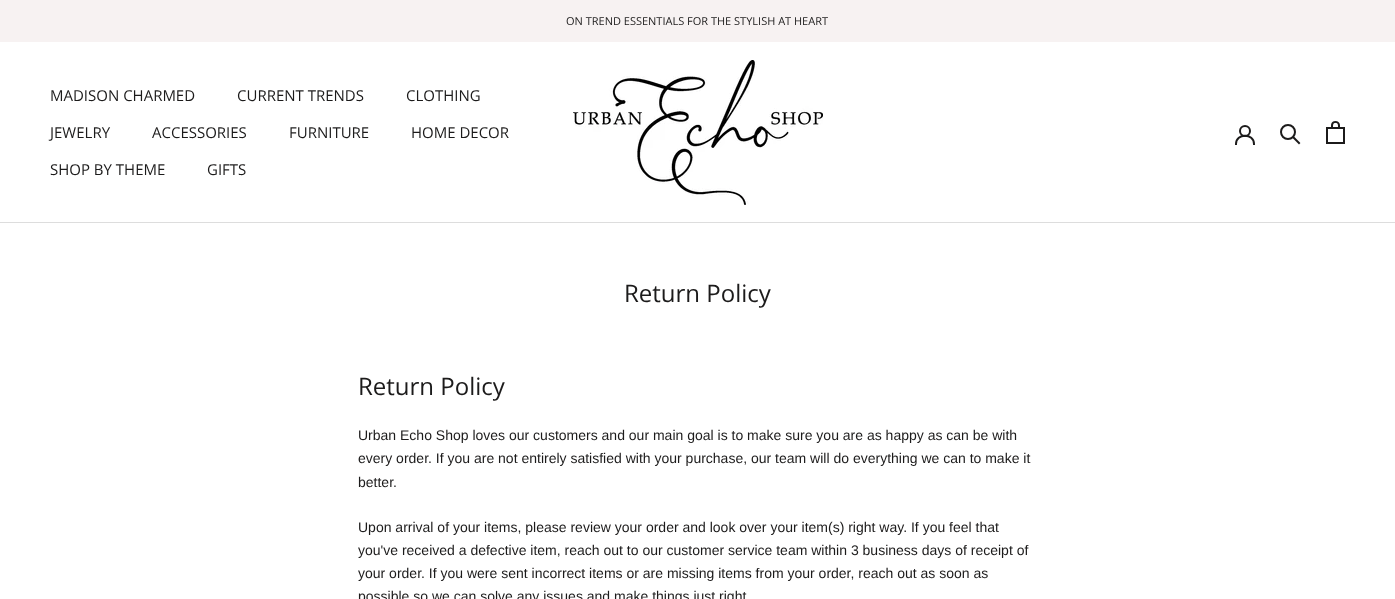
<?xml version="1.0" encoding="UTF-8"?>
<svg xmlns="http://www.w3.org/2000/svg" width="1395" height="599">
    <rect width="100%" height="100%" fill="#FFFFFF"/>
    <rect x="0" y="0" width="1395" height="42" fill="#F7F2F2"/>
    <text x="566" y="25" font-family="Open Sans" font-size="11" fill="#1C1B1B">ON TREND ESSENTIALS FOR THE STYLISH AT HEART</text>
    <rect x="0" y="222" width="1395" height="1" fill="#DDDDDD"/>
    <text x="50" y="101" font-family="Open Sans" font-size="15" fill="#1C1B1B">MADISON CHARMED</text>
    <text x="237" y="101" font-family="Open Sans" font-size="15" fill="#1C1B1B">CURRENT TRENDS</text>
    <text x="406" y="101" font-family="Open Sans" font-size="15" fill="#1C1B1B">CLOTHING</text>
    <text x="50" y="138" font-family="Open Sans" font-size="15" fill="#1C1B1B">JEWELRY</text>
    <text x="152" y="138" font-family="Open Sans" font-size="15" fill="#1C1B1B">ACCESSORIES</text>
    <text x="289" y="138" font-family="Open Sans" font-size="15" fill="#1C1B1B">FURNITURE</text>
    <text x="411" y="138" font-family="Open Sans" font-size="15" fill="#1C1B1B">HOME DECOR</text>
    <text x="50" y="175" font-family="Open Sans" font-size="15" fill="#1C1B1B">SHOP BY THEME</text>
    <text x="207" y="175" font-family="Open Sans" font-size="15" fill="#1C1B1B">GIFTS</text>
    <image x="573" y="60" width="250" height="145" href="img_01.png"/>
    <path d="M 1236 144 C 1236 133 1254 133 1254 144" fill="none" stroke="#1C1B1B" stroke-width="2" stroke-linecap="square"/>
    <circle cx="1245" cy="131" r="5" fill="none" stroke="#1C1B1B" stroke-width="2"/>
    <path d="M 1299 143 L 1293.5 137.5" fill="none" stroke="#1C1B1B" stroke-width="2" stroke-linecap="square"/>
    <circle cx="1288" cy="132" r="7" fill="none" stroke="#1C1B1B" stroke-width="2"/>
    <image x="1326" y="121" width="19" height="23" href="img_02.png"/>
    <text x="624" y="302" font-family="Open Sans" font-size="24" fill="#1C1B1B">Return Policy</text>
    <text x="358" y="395" font-family="Open Sans" font-size="24" fill="#1C1B1B">Return Policy</text>
    <text font-family="Arimo" font-size="14" fill="#1C1B1B">
        <tspan x="358" y="440">Urban Echo Shop loves our customers and our main goal is to make sure you are as happy as can be with</tspan>
        <tspan x="358" y="463">every order. If you are not entirely satisfied with your purchase, our team will do everything we can to make it</tspan>
        <tspan x="358" y="487">better.</tspan>
    </text>
    <text font-family="Arimo" font-size="14" fill="#1C1B1B">
        <tspan x="358" y="532">Upon arrival of your items, please review your order and look over your item(s) right way. If you feel that</tspan>
        <tspan x="358" y="555">you've received a defective item, reach out to our customer service team within 3 business days of receipt of</tspan>
        <tspan x="358" y="578">your order. If you were sent incorrect items or are missing items from your order, reach out as soon as</tspan>
        <tspan x="358" y="601">possible so we can solve any issues and make things just right</tspan>
    </text>
</svg>
